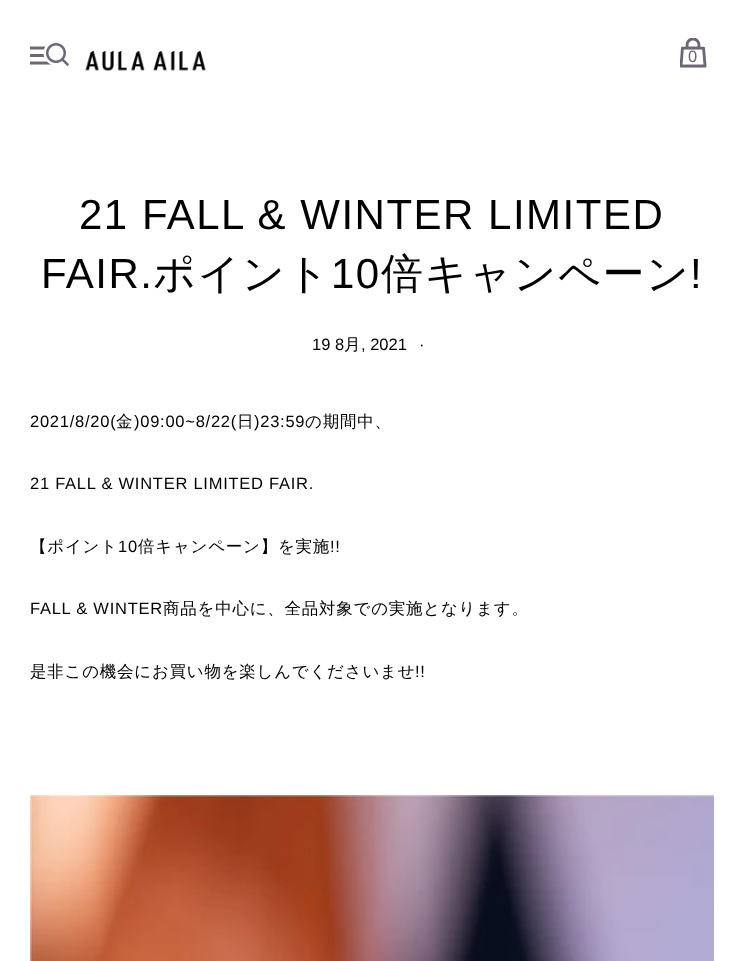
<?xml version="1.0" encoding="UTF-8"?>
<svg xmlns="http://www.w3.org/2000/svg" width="743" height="961">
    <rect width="100%" height="100%" fill="#FFFFFF"/>
    <image x="30" y="43" width="39" height="23" href="img_01.png"/>
    <image x="85" y="51" width="121" height="20" href="img_02.png"/>
    <image x="680" y="38" width="27" height="30" href="img_03.png"/>
    <text x="688" y="62" font-family="Liberation Sans" font-size="16.5" fill="#6E6673">0</text>
    <text x="79" y="229" font-family="Liberation Sans" font-size="42" letter-spacing="1.5" fill="#000000">21 FALL &amp; WINTER LIMITED</text>
    <text x="41" y="288" font-family="Liberation Sans" font-size="42" letter-spacing="1.5" fill="#000000">FAIR.</text>
    <text x="153" y="288" font-family="WenQuanYi Zen Hei" font-size="42" font-weight="500" letter-spacing="1.5" fill="#000000">ポイント</text>
    <text x="331" y="288" font-family="Liberation Sans" font-size="42" letter-spacing="1.5" fill="#000000">10</text>
    <text x="381" y="288" font-family="WenQuanYi Zen Hei" font-size="42" font-weight="500" letter-spacing="1.5" fill="#000000">倍キャンペーン</text>
    <text x="690" y="288" font-family="Liberation Sans" font-size="42" letter-spacing="1.5" fill="#000000">!</text>
    <text x="312" y="350" font-family="Liberation Sans" font-size="16.5" fill="#000000">19 8</text>
    <text x="344" y="350" font-family="WenQuanYi Zen Hei" font-size="16.5" font-weight="500" fill="#000000">月</text>
    <text x="361" y="350" font-family="Liberation Sans" font-size="16.5" fill="#000000">, 2021</text>
    <text x="419" y="350" font-family="Liberation Sans" font-size="16.5" fill="#000000">·</text>
    <text x="30" y="427" font-family="Liberation Sans" font-size="16.5" letter-spacing="0.75" fill="#000000">2021/8/20(</text>
    <text x="116" y="427" font-family="WenQuanYi Zen Hei" font-size="16.5" font-weight="500" letter-spacing="0.75" fill="#000000">金</text>
    <text x="134" y="427" font-family="Liberation Sans" font-size="16.5" letter-spacing="0.75" fill="#000000">)09:00~8/22(</text>
    <text x="237" y="427" font-family="WenQuanYi Zen Hei" font-size="16.5" font-weight="500" letter-spacing="0.75" fill="#000000">日</text>
    <text x="254" y="427" font-family="Liberation Sans" font-size="16.5" letter-spacing="0.75" fill="#000000">)23:59</text>
    <text x="305" y="427" font-family="WenQuanYi Zen Hei" font-size="16.5" font-weight="500" letter-spacing="0.75" fill="#000000">の期間中、</text>
    <text x="30" y="489" font-family="Liberation Sans" font-size="16.5" letter-spacing="0.75" fill="#000000">21 FALL &amp; WINTER LIMITED FAIR.</text>
    <text x="30" y="552" font-family="WenQuanYi Zen Hei" font-size="16.5" font-weight="500" letter-spacing="0.75" fill="#000000">【ポイント</text>
    <text x="118" y="552" font-family="Liberation Sans" font-size="16.5" letter-spacing="0.75" fill="#000000">10</text>
    <text x="138" y="552" font-family="WenQuanYi Zen Hei" font-size="16.5" font-weight="500" letter-spacing="0.75" fill="#000000">倍キャンペーン】を実施</text>
    <text x="330" y="552" font-family="Liberation Sans" font-size="16.5" letter-spacing="0.75" fill="#000000">!!</text>
    <text x="30" y="614" font-family="Liberation Sans" font-size="16.5" letter-spacing="0.75" fill="#000000">FALL &amp; WINTER</text>
    <text x="163" y="614" font-family="WenQuanYi Zen Hei" font-size="16.5" font-weight="500" letter-spacing="0.75" fill="#000000">商品を中心に、全品対象での実施となります。</text>
    <text x="30" y="677" font-family="WenQuanYi Zen Hei" font-size="16.5" font-weight="500" letter-spacing="0.75" fill="#000000">是非この機会にお買い物を楽しんでくださいませ</text>
    <text x="415" y="677" font-family="Liberation Sans" font-size="16.5" letter-spacing="0.75" fill="#000000">!!</text>
    <image x="30" y="795" width="684" height="166" href="img_04.png"/>
</svg>
